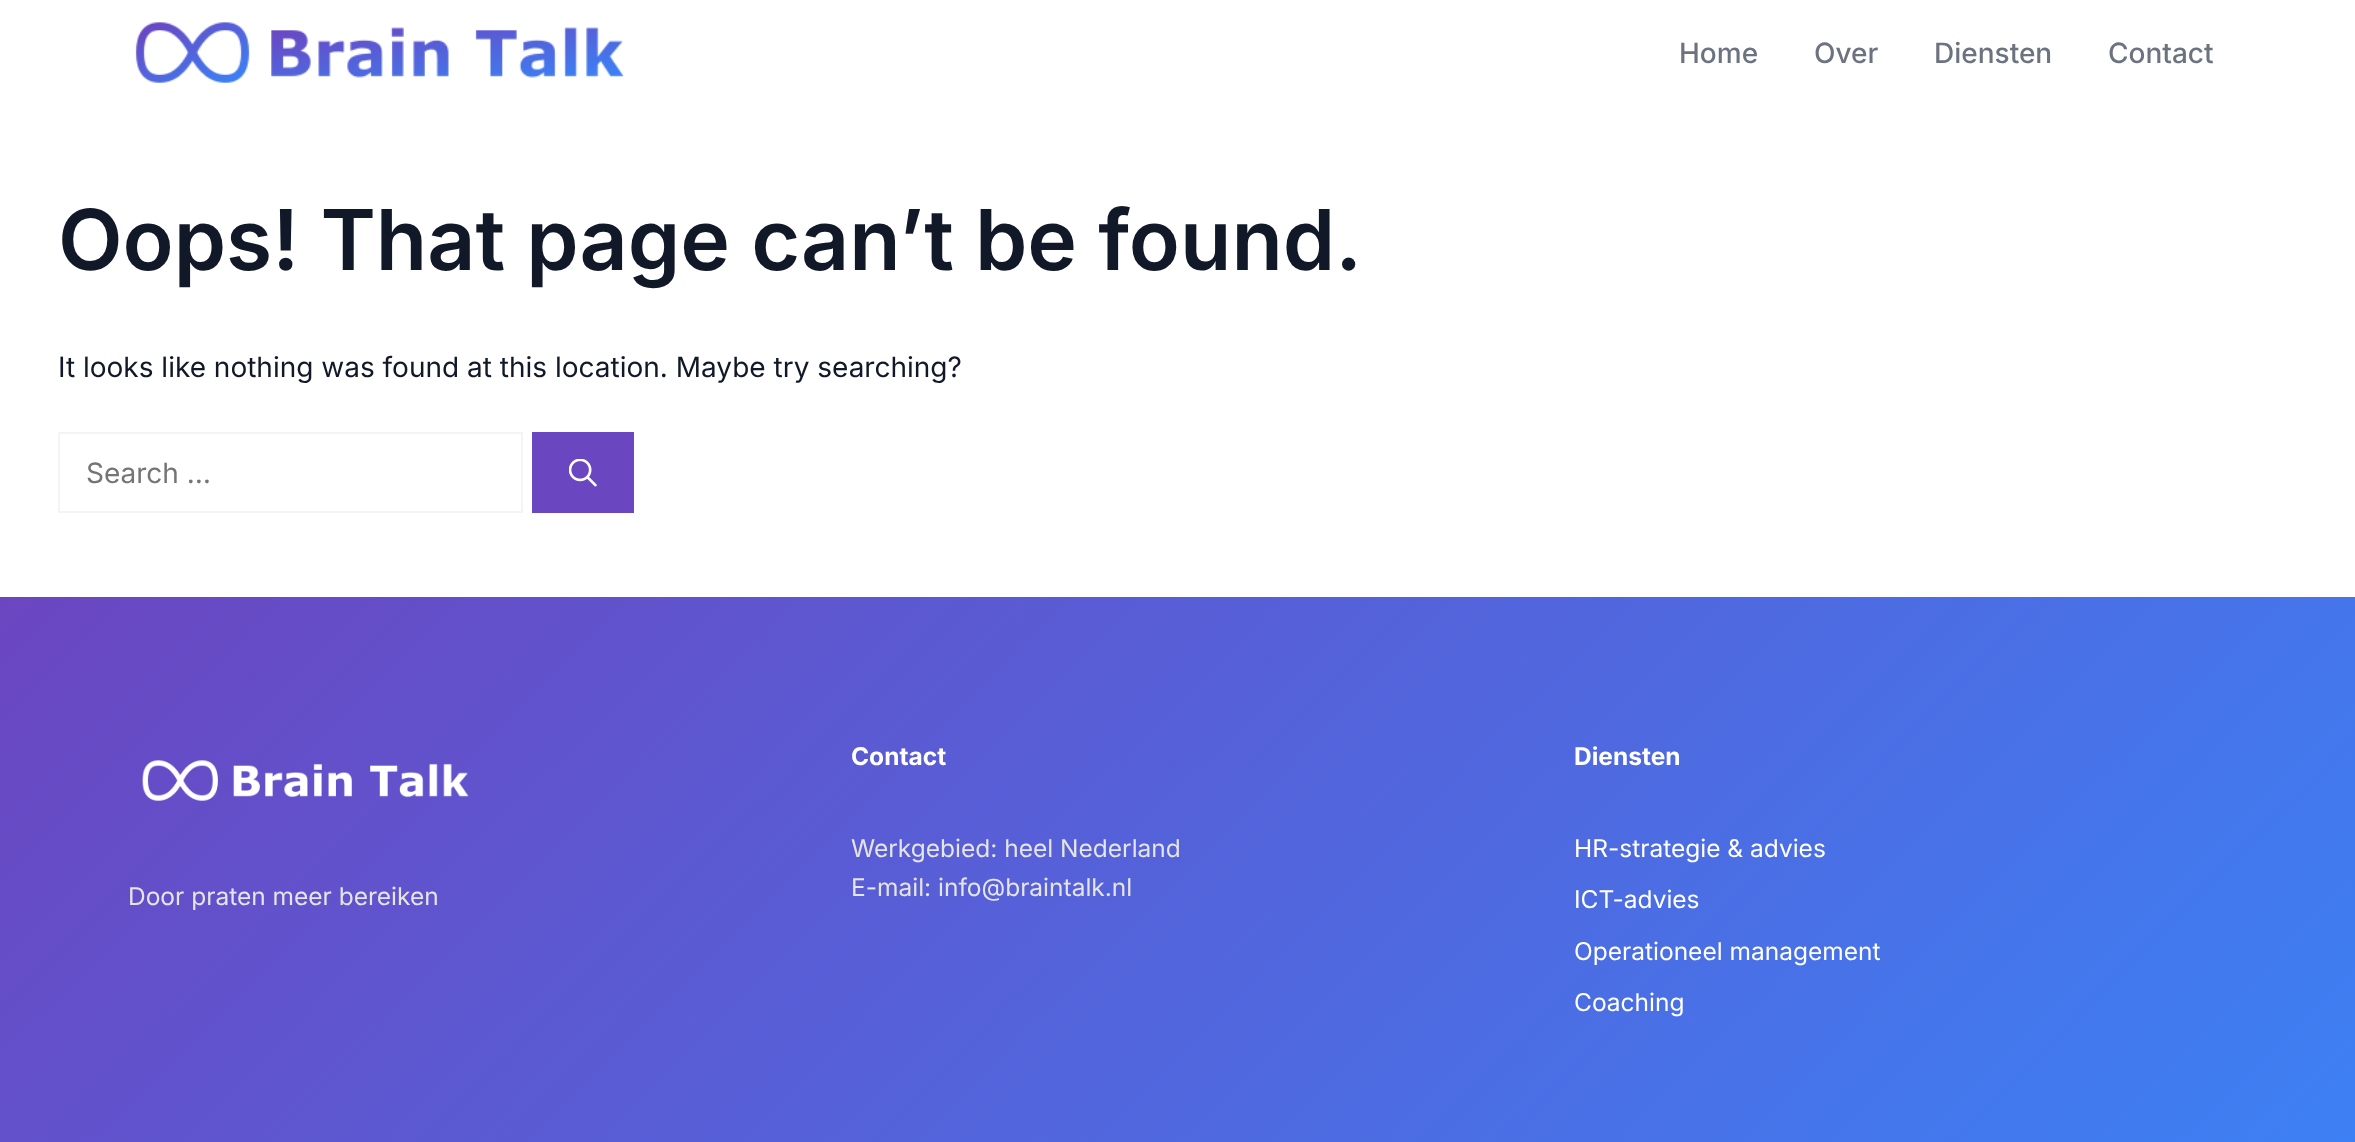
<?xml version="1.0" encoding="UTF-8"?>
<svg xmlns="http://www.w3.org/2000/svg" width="2355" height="1142">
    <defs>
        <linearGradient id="g1" gradientUnits="userSpaceOnUse" x1="427" y1="170" x2="1929" y2="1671"><stop offset="0" stop-color="#6B46C1"/><stop offset="1" stop-color="#3B82F6"/></linearGradient>
    </defs>
    <rect width="100%" height="100%" fill="#FFFFFF"/>
    <image x="135" y="22" width="489" height="61" href="img_01.png"/>
    <text x="1679" y="63" font-family="Inter" font-size="28" font-weight="500" fill="#6B7280">Home</text>
    <text x="1814" y="63" font-family="Inter" font-size="28" font-weight="500" fill="#6B7280">Over</text>
    <text x="1934" y="63" font-family="Inter" font-size="28" font-weight="500" fill="#6B7280">Diensten</text>
    <text x="2108" y="63" font-family="Inter" font-size="28" font-weight="500" fill="#6B7280">Contact</text>
    <text x="58" y="270" font-family="Inter" font-size="84" font-weight="600" fill="#111827">Oops! That page can’t be found.</text>
    <text x="58" y="377" font-family="Inter" font-size="28" fill="#111827">It looks like nothing was found at this location. Maybe try searching?</text>
    <rect x="59" y="433" width="463" height="79" fill="none" stroke="#F3F4F6" stroke-width="2"/>
    <text x="86" y="483" font-family="Inter" font-size="28" fill="#757575">Search …</text>
    <rect x="532" y="432" width="102" height="81" fill="#6B46C1"/>
    <image x="569" y="459" width="28" height="28" href="img_02.png"/>
    <rect x="0" y="597" width="2355" height="545" fill="url(#g1)"/>
    <image x="142" y="760" width="327" height="41" href="img_03.png"/>
    <text x="128" y="905" font-family="Inter" font-size="24.5" fill="#E5E5E5">Door praten meer bereiken</text>
    <text x="851" y="765" font-family="Inter" font-size="24.5" font-weight="700" fill="#FFFFFF">Contact</text>
    <text font-family="Inter" font-size="24.5" fill="#E5E5E5">
        <tspan x="851" y="857">Werkgebied: heel Nederland</tspan>
        <tspan x="851" y="896">E-mail: info@braintalk.nl</tspan>
    </text>
    <text x="1574" y="765" font-family="Inter" font-size="24.5" font-weight="700" fill="#FFFFFF">Diensten</text>
    <text x="1574" y="857" font-family="Inter" font-size="24.5" fill="#FFFFFF">HR-strategie &amp; advies</text>
    <text x="1574" y="908" font-family="Inter" font-size="24.5" fill="#FFFFFF">ICT-advies</text>
    <text x="1574" y="960" font-family="Inter" font-size="24.5" fill="#FFFFFF">Operationeel management</text>
    <text x="1574" y="1011" font-family="Inter" font-size="24.5" fill="#FFFFFF">Coaching</text>
</svg>
